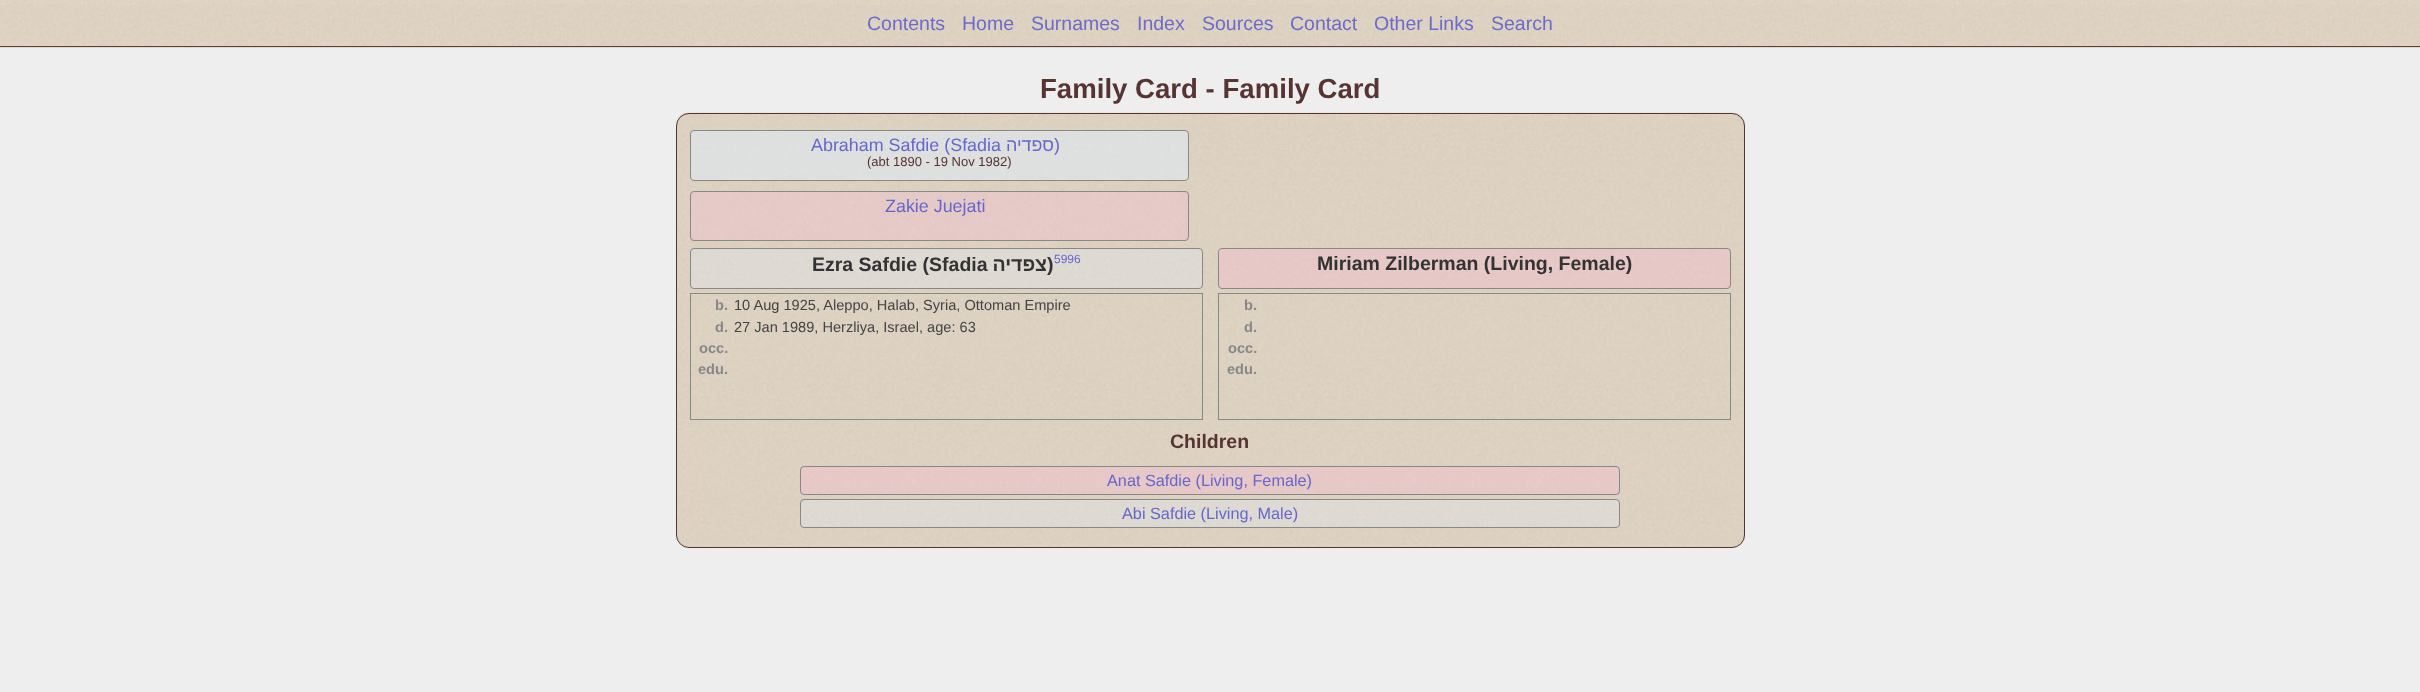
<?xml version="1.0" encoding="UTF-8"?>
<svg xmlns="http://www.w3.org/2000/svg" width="2420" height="692">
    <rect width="100%" height="100%" fill="#EEEEEE"/>
    <image x="0" y="0" width="2420" height="48" href="img_01.png"/>
    <image x="0" y="4" width="2420" height="44" href="img_02.png"/>
    <rect x="0" y="46" width="2420" height="1" fill="#563433" fill-opacity="0.95"/>
    <text x="867" y="30" font-family="Liberation Sans" font-size="19.5" fill="#6C6BCB">Contents</text>
    <text x="962" y="30" font-family="Liberation Sans" font-size="19.5" fill="#6C6BCB">Home</text>
    <text x="1031" y="30" font-family="Liberation Sans" font-size="19.5" fill="#6C6BCB">Surnames</text>
    <text x="1137" y="30" font-family="Liberation Sans" font-size="19.5" fill="#6C6BCB">Index</text>
    <text x="1202" y="30" font-family="Liberation Sans" font-size="19.5" fill="#6C6BCB">Sources</text>
    <text x="1290" y="30" font-family="Liberation Sans" font-size="19.5" fill="#6C6BCB">Contact</text>
    <text x="1374" y="30" font-family="Liberation Sans" font-size="19.5" fill="#6C6BCB">Other Links</text>
    <text x="1491" y="30" font-family="Liberation Sans" font-size="19.5" fill="#6C6BCB">Search</text>
    <text x="1040" y="98" font-family="Liberation Sans" font-size="27.6" font-weight="700" fill="#563433">Family Card - Family Card</text>
    <image x="676" y="112" width="1069" height="436" href="img_03.png"/>
    <rect x="676.5" y="113.5" width="1068" height="434" rx="12.5" fill="none" stroke="#563433"/>
    <rect x="690.5" y="130.5" width="498" height="50" rx="3.5" fill="#E0EFFE" fill-opacity="0.51" stroke="#888888"/>
    <text x="811" y="151" font-family="Liberation Sans" font-size="17.9" fill="#6666CC">Abraham Safdie (Sfadia</text>
    <text x="1054" y="151" font-family="Liberation Sans" font-size="17.9" direction="rtl" fill="#6666CC">ספדיה</text>
    <text x="1054" y="151" font-family="Liberation Sans" font-size="17.9" fill="#6666CC">)</text>
    <text x="867" y="166" font-family="Liberation Sans" font-size="13" fill="#563433">(abt 1890 - 19 Nov 1982)</text>
    <rect x="690.5" y="191.5" width="498" height="49" rx="3.5" fill="#FCB7D6" fill-opacity="0.28" stroke="#888888"/>
    <text x="885" y="212" font-family="Liberation Sans" font-size="17.9" fill="#6666CC">Zakie Juejati</text>
    <rect x="690.5" y="248.5" width="512" height="40" rx="3.5" fill="#E0EFFE" fill-opacity="0.3" stroke="#888888"/>
    <text x="812" y="271" font-family="Liberation Sans" font-size="19.5" font-weight="700" fill="#333333">Ezra Safdie (Sfadia</text>
    <text x="1047" y="271" font-family="Liberation Sans" font-size="19.5" font-weight="700" direction="rtl" fill="#333333">צפדיה</text>
    <text x="1047" y="271" font-family="Liberation Sans" font-size="19.5" font-weight="700" fill="#333333">)</text>
    <text x="1054" y="263" font-family="Liberation Sans" font-size="12" fill="#6666CC">5996</text>
    <rect x="1218.5" y="248.5" width="512" height="40" rx="3.5" fill="#FCB7D6" fill-opacity="0.3" stroke="#888888"/>
    <text x="1317" y="270" font-family="Liberation Sans" font-size="19.5" font-weight="700" fill="#333333">Miriam Zilberman (Living, Female)</text>
    <rect x="690.5" y="293.5" width="512" height="126" fill="none" stroke="#888888"/>
    <text x="715" y="310" font-family="Liberation Sans" font-size="14.6" font-weight="700" fill="#888888">b.</text>
    <text x="734" y="310" font-family="Liberation Sans" font-size="14.6" fill="#444444">10 Aug 1925, Aleppo, Halab, Syria, Ottoman Empire</text>
    <text x="715" y="332" font-family="Liberation Sans" font-size="14.6" font-weight="700" fill="#888888">d.</text>
    <text x="734" y="332" font-family="Liberation Sans" font-size="14.6" fill="#444444">27 Jan 1989, Herzliya, Israel, age: 63</text>
    <text x="699" y="353" font-family="Liberation Sans" font-size="14.6" font-weight="700" fill="#888888">occ.</text>
    <text x="698" y="374" font-family="Liberation Sans" font-size="14.6" font-weight="700" fill="#888888">edu.</text>
    <rect x="1218.5" y="293.5" width="512" height="126" fill="none" stroke="#888888"/>
    <text font-family="Liberation Sans" font-size="14.6" font-weight="700" fill="#888888">
        <tspan x="1244" y="310">b.</tspan>
        <tspan x="1244" y="332">d.</tspan>
    </text>
    <text x="1228" y="353" font-family="Liberation Sans" font-size="14.6" font-weight="700" fill="#888888">occ.</text>
    <text x="1227" y="374" font-family="Liberation Sans" font-size="14.6" font-weight="700" fill="#888888">edu.</text>
    <text x="1170" y="448" font-family="Liberation Sans" font-size="19.5" font-weight="700" fill="#563433">Children</text>
    <rect x="800.5" y="466.5" width="819" height="28" rx="3.5" fill="#FCB7D6" fill-opacity="0.3" stroke="#888888"/>
    <text x="1107" y="486" font-family="Liberation Sans" font-size="16.25" fill="#6666CC">Anat Safdie (Living, Female)</text>
    <rect x="800.5" y="499.5" width="819" height="28" rx="3.5" fill="#E0EFFE" fill-opacity="0.3" stroke="#888888"/>
    <text x="1122" y="519" font-family="Liberation Sans" font-size="16.25" fill="#6666CC">Abi Safdie (Living, Male)</text>
</svg>
